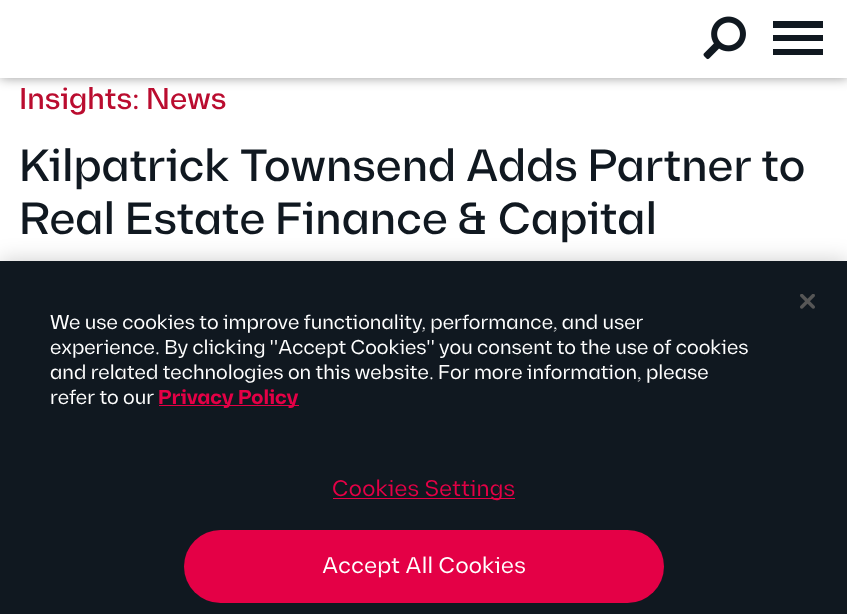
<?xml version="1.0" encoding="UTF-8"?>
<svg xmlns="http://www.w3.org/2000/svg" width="847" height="614">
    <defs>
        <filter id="blur1" x="-50%" y="-200%" width="200%" height="500%"><feGaussianBlur stdDeviation="6"/></filter>
        <filter id="blur2" x="-50%" y="-200%" width="200%" height="500%"><feGaussianBlur stdDeviation="11"/></filter>
    </defs>
    <rect width="100%" height="100%" fill="#FFFFFF"/>
    <rect x="0" y="0" width="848" height="78" fill="#000000" fill-opacity="0.4" filter="url(#blur1)"/>
    <rect x="0" y="0" width="847" height="78" fill="#FFFFFF"/>
    <image x="703" y="16" width="43" height="44" href="img_01.png"/>
    <rect x="773" y="35" width="50" height="6" fill="#101820"/>
    <rect x="773" y="21" width="50" height="7" fill="#101820"/>
    <rect x="773" y="49" width="50" height="6" fill="#101820"/>
    <text x="19" y="109" font-family="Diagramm" font-size="30" font-weight="500" fill="#BA0C2F">Insights: News</text>
    <text font-family="Diagramm" font-size="45" font-weight="500" fill="#101820">
        <tspan x="19" y="181">Kilpatrick Townsend Adds Partner to</tspan>
        <tspan x="19" y="234">Real Estate Finance &amp; Capital</tspan>
    </text>
    <rect x="0" y="261" width="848" height="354" fill="#000000" fill-opacity="0.2" filter="url(#blur2)"/>
    <rect x="0" y="261" width="847" height="353" fill="#101820"/>
    <image x="800" y="294" width="15" height="15" href="img_02.png"/>
    <text font-family="Diagramm" font-size="20" fill="#FFFFFF">
        <tspan x="50" y="329">We use cookies to improve functionality, performance, and user</tspan>
        <tspan x="50" y="354">experience. By clicking "Accept Cookies" you consent to the use of cookies</tspan>
        <tspan x="50" y="379">and related technologies on this website. For more information, please</tspan>
        <tspan x="50" y="404">refer to our</tspan>
    </text>
    <rect x="159" y="405" width="140" height="1" fill="#E40046"/>
    <text x="158" y="404" font-family="Diagramm" font-size="20" font-weight="700" fill="#E40046">Privacy Policy</text>
    <rect x="333" y="498" width="182" height="1" fill="#E40046"/>
    <text x="332" y="496" font-family="Diagramm" font-size="22.5" letter-spacing="0.25" fill="#E40046">Cookies Settings</text>
    <rect x="184" y="530" width="480" height="73" rx="36.5" fill="#E40046"/>
    <text x="322" y="573" font-family="Diagramm" font-size="22.5" letter-spacing="0.25" fill="#FFFFFF">Accept All Cookies</text>
</svg>
